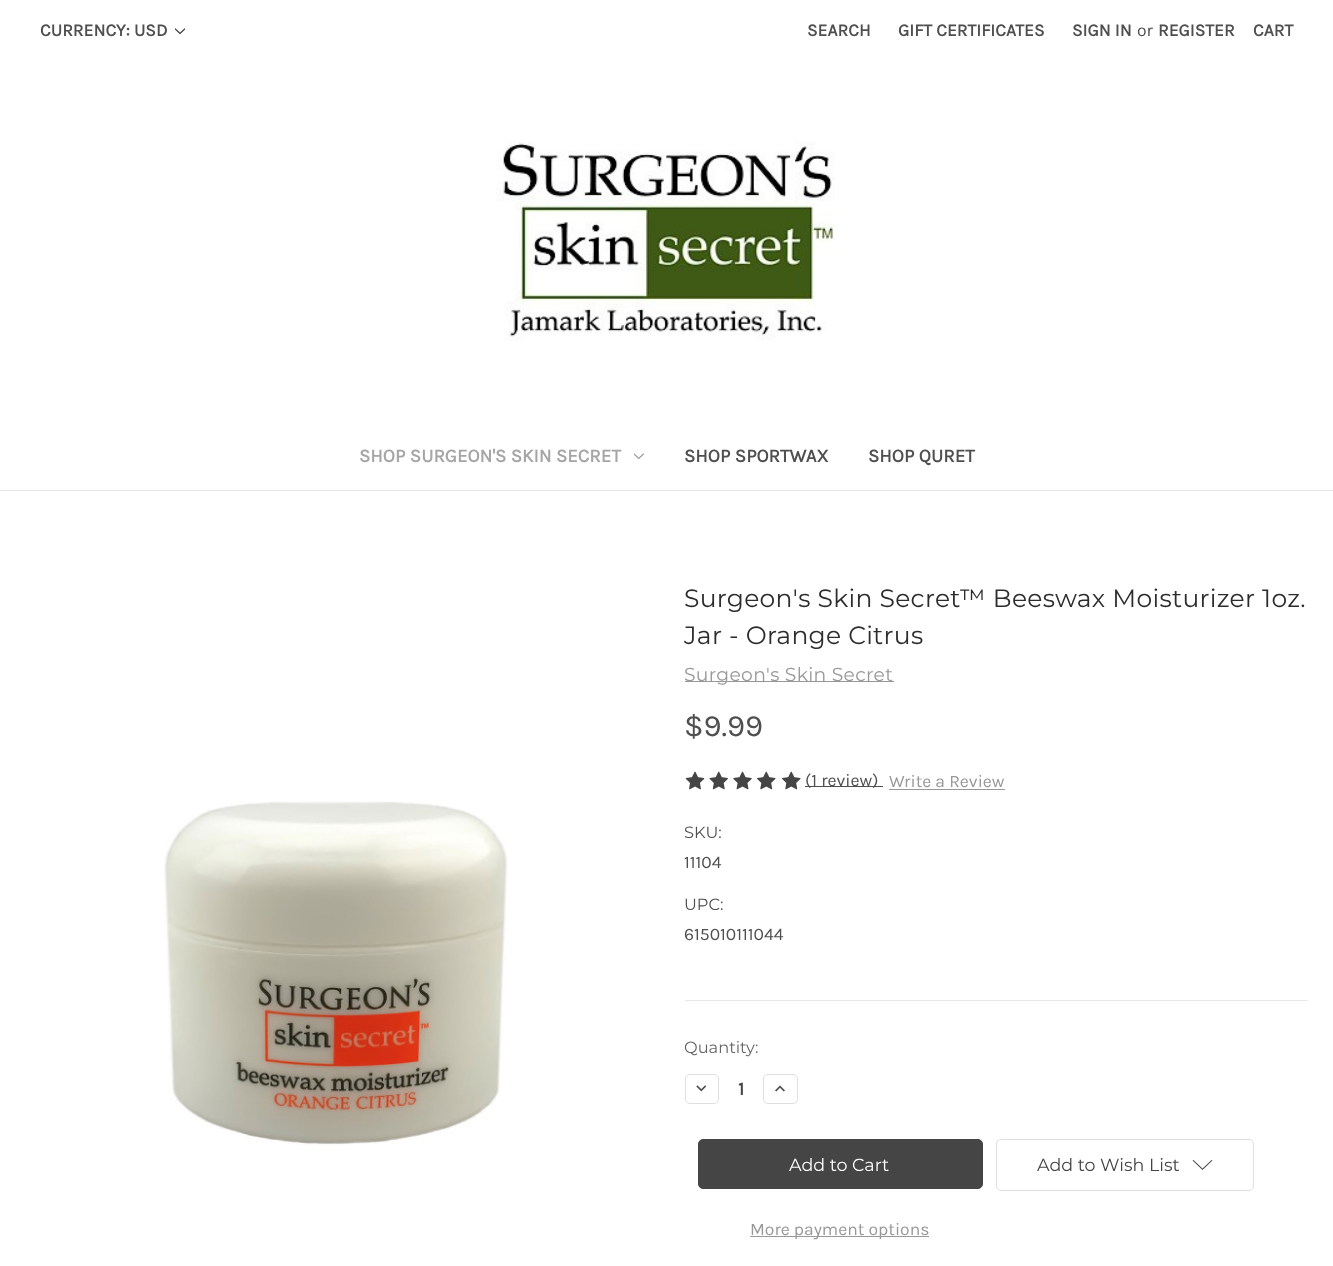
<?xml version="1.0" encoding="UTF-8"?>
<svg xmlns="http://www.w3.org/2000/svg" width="1333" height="1266">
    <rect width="100%" height="100%" fill="#FFFFFF"/>
    <rect x="0" y="490" width="1333" height="1" fill="#E8E8E8"/>
    <text x="40" y="36" font-family="Karla" font-size="17.5" font-weight="700" fill="#4F4F4F">CURRENCY: USD</text>
    <image x="175" y="28" width="10" height="7" href="img_01.png"/>
    <text x="807" y="36" font-family="Karla" font-size="17.5" font-weight="700" fill="#4F4F4F">SEARCH</text>
    <text x="898" y="36" font-family="Karla" font-size="17.5" font-weight="700" fill="#4F4F4F">GIFT CERTIFICATES</text>
    <text x="1072" y="36" font-family="Karla" font-size="17.5" font-weight="700" fill="#4F4F4F">SIGN IN</text>
    <text x="1137" y="36" font-family="Karla" font-size="17.5" fill="#4F4F4F">or</text>
    <text x="1158" y="36" font-family="Karla" font-size="17.5" font-weight="700" fill="#4F4F4F">REGISTER</text>
    <text x="1253" y="36" font-family="Karla" font-size="17.5" font-weight="700" fill="#4F4F4F">CART</text>
    <image x="496" y="141" width="339" height="200" href="img_02.png"/>
    <text x="359" y="462" font-family="Karla" font-size="18.75" font-weight="700" fill="#A5A5A5">SHOP SURGEON'S SKIN SECRET</text>
    <image x="634" y="453" width="10" height="7" href="img_03.png"/>
    <text x="684" y="462" font-family="Karla" font-size="18.75" font-weight="700" fill="#4F4F4F">SHOP SPORTWAX</text>
    <text x="868" y="462" font-family="Karla" font-size="18.75" font-weight="700" fill="#4F4F4F">SHOP QURET</text>
    <image x="164" y="801" width="344" height="345" href="img_04.png"/>
    <rect x="685" y="1000" width="623" height="1" fill="#E8E8E8"/>
    <text font-family="Montserrat" font-size="25" font-weight="100" letter-spacing="0.3" fill="#2D2D2D">
        <tspan x="684" y="607">Surgeon's Skin Secret™ Beeswax Moisturizer 1oz.</tspan>
        <tspan x="684" y="644">Jar - Orange Citrus</tspan>
    </text>
    <rect x="685" y="681" width="209" height="1" fill="#989898"/>
    <text x="684" y="681" font-family="Montserrat" font-size="18.75" font-weight="100" letter-spacing="0.3" fill="#989898">Surgeon's Skin Secret</text>
    <text x="684" y="736" font-family="Karla" font-size="31" fill="#4F4F4F">$9.99</text>
    <image x="685" y="771" width="20" height="19" href="img_05.png"/>
    <image x="709" y="771" width="19" height="19" href="img_06.png"/>
    <image x="733" y="771" width="19" height="19" href="img_07.png"/>
    <image x="757" y="771" width="19" height="19" href="img_08.png"/>
    <image x="782" y="771" width="19" height="19" href="img_08.png"/>
    <rect x="805" y="786" width="78" height="1" fill="#4F4F4F"/>
    <text x="805" y="786" font-family="Karla" font-size="17.5" fill="#4F4F4F">(1 review)</text>
    <text x="889" y="787" font-family="Karla" font-size="17.5" fill="#989898">Write a Review</text>
    <rect x="889" y="789" width="116" height="1" fill="#989898"/>
    <text x="684" y="838" font-family="Montserrat" font-size="16.25" font-weight="100" fill="#4F4F4F">SKU:</text>
    <text x="684" y="868" font-family="Karla" font-size="17.5" fill="#4F4F4F">11104</text>
    <text x="684" y="910" font-family="Montserrat" font-size="16.25" font-weight="100" fill="#4F4F4F">UPC:</text>
    <text x="684" y="940" font-family="Karla" font-size="17.5" fill="#4F4F4F">615010111044</text>
    <text x="684" y="1053" font-family="Montserrat" font-size="16.25" font-weight="100" fill="#666666">Quantity:</text>
    <rect x="685.5" y="1074.5" width="33" height="29" rx="4.5" fill="none" stroke="#DFDFDF"/>
    <image x="696" y="1085" width="11" height="7" href="img_09.png"/>
    <text x="738" y="1095" font-family="Karla" font-size="18.75" font-weight="700" fill="#454545">1</text>
    <rect x="763.5" y="1074.5" width="34" height="29" rx="4.5" fill="none" stroke="#DFDFDF"/>
    <image x="775" y="1085" width="10" height="7" href="img_10.png"/>
    <rect x="698.5" y="1139.5" width="284" height="49" rx="4.5" fill="#454545" stroke="#454545"/>
    <text x="789" y="1171" font-family="Montserrat" font-size="17.5" font-weight="100" fill="#FFFFFF">Add to Cart</text>
    <rect x="750" y="1236" width="179" height="1" fill="#989898"/>
    <text x="750" y="1235" font-family="Karla" font-size="17.5" fill="#989898">More payment options</text>
    <rect x="996.5" y="1139.5" width="257" height="51" rx="4.5" fill="none" stroke="#DFDFDF"/>
    <text x="1037" y="1171" font-family="Montserrat" font-size="17.5" font-weight="100" fill="#454545">Add to Wish List</text>
    <path d="M 1202.5 1168.5 L 1211.5 1160 L 1212.5 1160.5 L 1202.5 1170 L 1192.5 1160.5 L 1193.5 1160 Z" fill="#4F4F4F" fill-rule="evenodd"/>
</svg>
